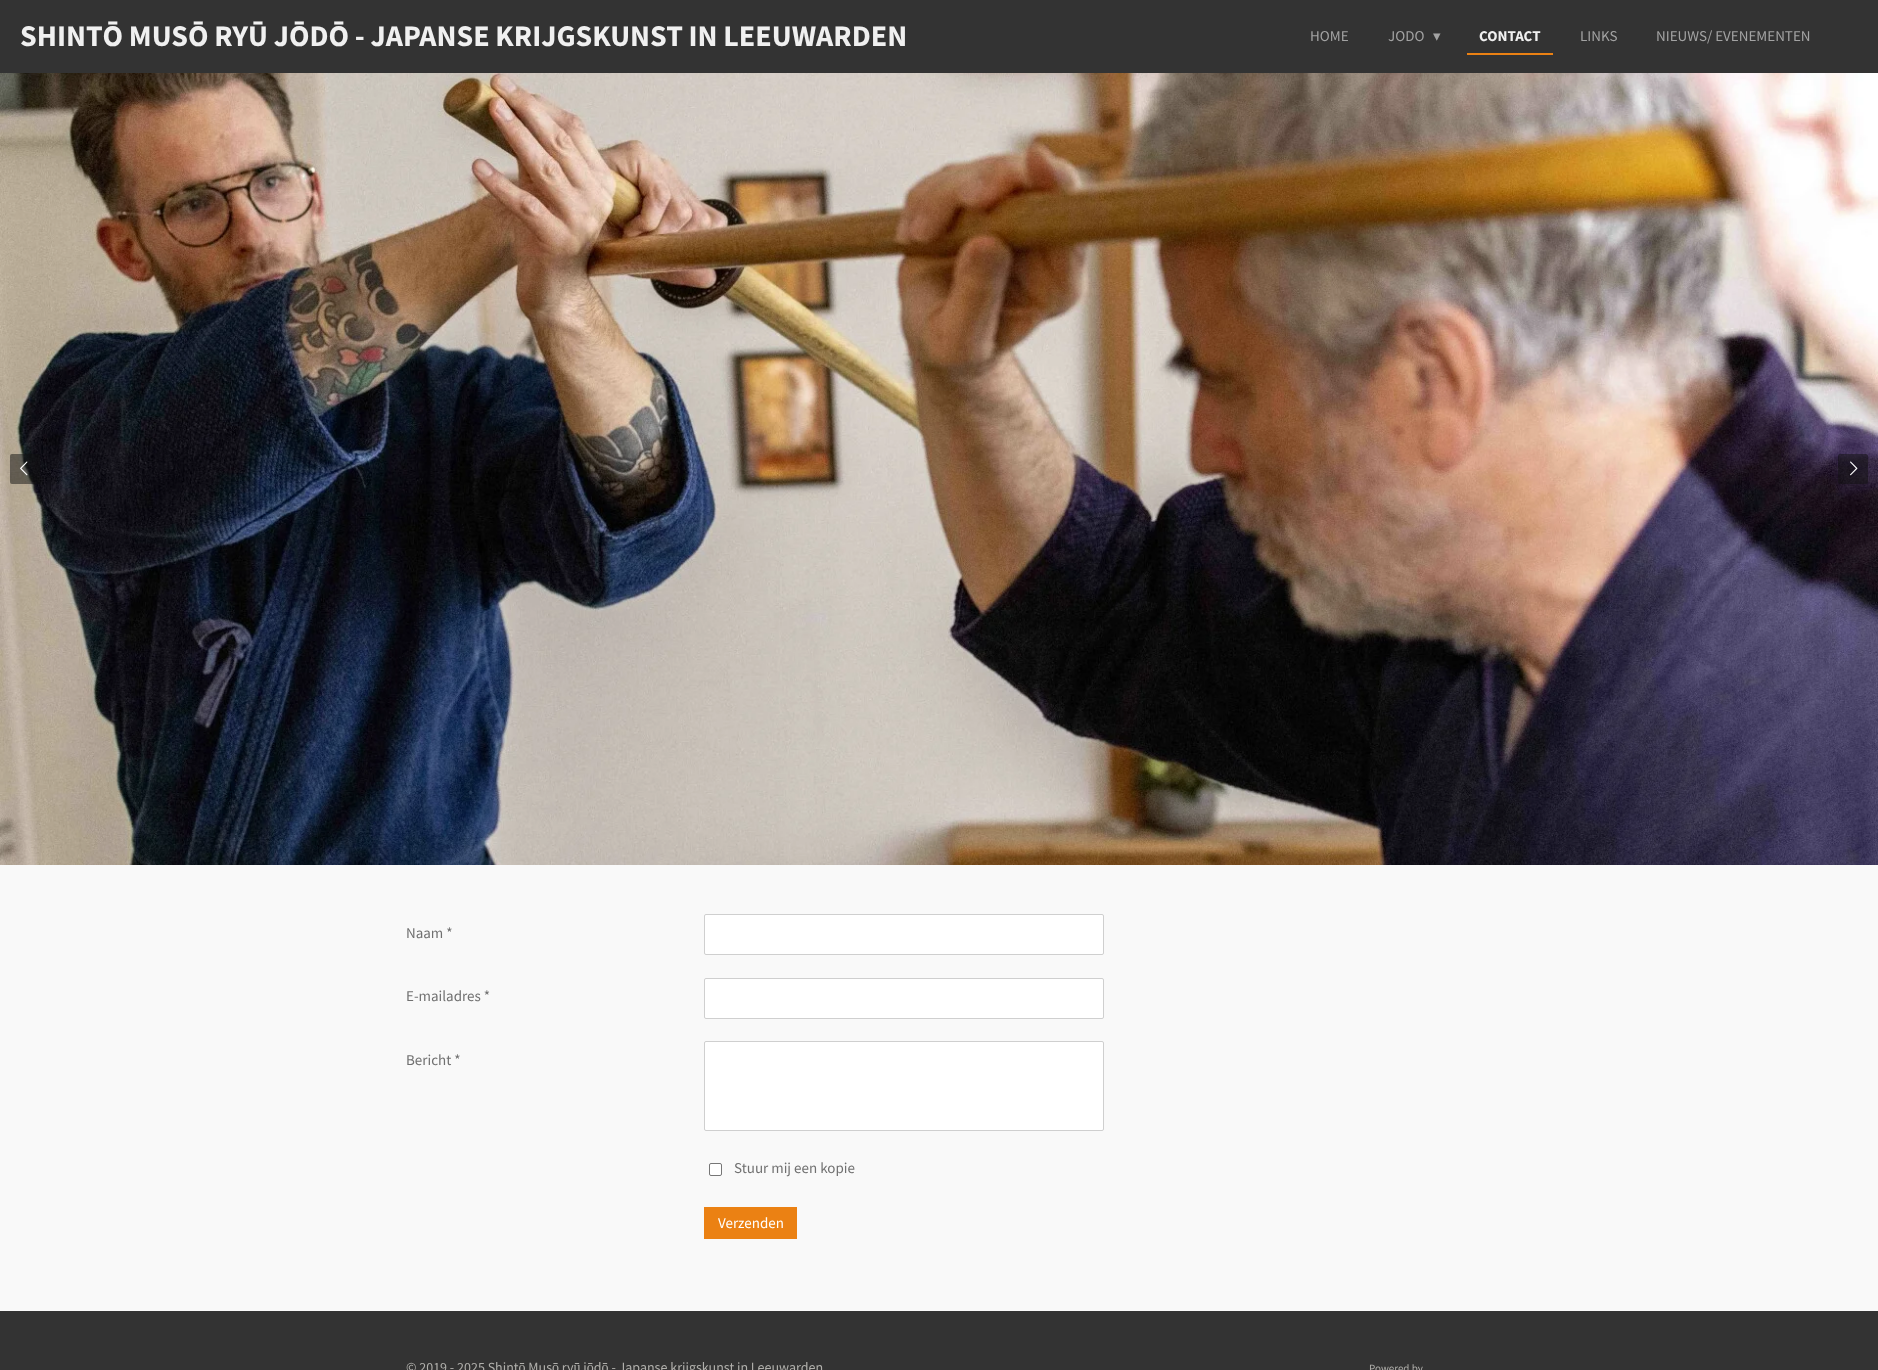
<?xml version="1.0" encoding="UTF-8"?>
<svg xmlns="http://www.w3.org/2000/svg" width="1878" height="1370">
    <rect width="100%" height="100%" fill="#333333"/>
    <text x="20" y="46" word-spacing="-0.25" font-family="Source Sans Pro" font-size="30" font-weight="700" fill="#F0F0F0">SHINTŌ MUSŌ RYŪ JŌDŌ - JAPANSE KRIJGSKUNST IN LEEUWARDEN</text>
    <text x="1310" y="41" font-family="Source Sans Pro" font-size="15" fill="#A3A3A3">HOME</text>
    <text x="1388" y="41" font-family="Source Sans Pro" font-size="15" fill="#A3A3A3">JODO</text>
    <text x="1433" y="41" font-family="DejaVu Sans" font-size="15" fill="#A3A3A3">▾</text>
    <rect x="1467" y="53" width="86" height="2" fill="#EB8113"/>
    <text x="1479" y="41" font-family="Source Sans Pro" font-size="15" font-weight="700" fill="#F0F0F0">CONTACT</text>
    <text x="1580" y="41" font-family="Source Sans Pro" font-size="15" fill="#A3A3A3">LINKS</text>
    <text x="1656" y="41" font-family="Source Sans Pro" font-size="15" fill="#A3A3A3">NIEUWS/ EVENEMENTEN</text>
    <image x="0" y="73" width="1878" height="792" href="img_01.png"/>
    <rect x="10" y="454" width="30" height="30" rx="2" fill="#0F0F0F" fill-opacity="0.5"/>
    <image x="20" y="461" width="8" height="15" href="img_02.png"/>
    <rect x="1838" y="454" width="30" height="30" rx="2" fill="#0F0F0F" fill-opacity="0.5"/>
    <image x="1850" y="461" width="8" height="15" href="img_03.png"/>
    <rect x="0" y="865" width="1878" height="446" fill="#F9F9F9"/>
    <text x="406" y="938" font-family="Source Sans Pro" font-size="15" fill="#707070">Naam *</text>
    <rect x="704.5" y="914.5" width="399" height="40" rx="1.5" fill="#FFFFFF" stroke="#CFCFCF"/>
    <text x="406" y="1001" font-family="Source Sans Pro" font-size="15" fill="#707070">E-mailadres *</text>
    <rect x="704.5" y="978.5" width="399" height="40" rx="1.5" fill="#FFFFFF" stroke="#CFCFCF"/>
    <text x="406" y="1065" font-family="Source Sans Pro" font-size="15" fill="#707070">Bericht *</text>
    <rect x="704.5" y="1041.5" width="399" height="89" rx="1.5" fill="#FFFFFF" stroke="#CFCFCF"/>
    <rect x="709.5" y="1163.5" width="12" height="12" rx="1.5" fill="#FFFFFF" stroke="#767676"/>
    <text x="734" y="1173" font-family="Source Sans Pro" font-size="15" fill="#707070">Stuur mij een kopie</text>
    <rect x="704" y="1207" width="93" height="32" fill="#EB8113"/>
    <text x="718" y="1228" font-family="Source Sans Pro" font-size="15" fill="#FFFFFF">Verzenden</text>
    <text x="406" y="1372" font-family="Source Sans Pro" font-size="14" fill="#B1B0AC">© 2019 - 2025 Shintō Musō ryū jōdō - Japanse krijgskunst in Leeuwarden</text>
    <text x="1369" y="1372" font-family="Source Sans Pro" font-size="11" fill="#B1B0AC">Powered by</text>
</svg>
